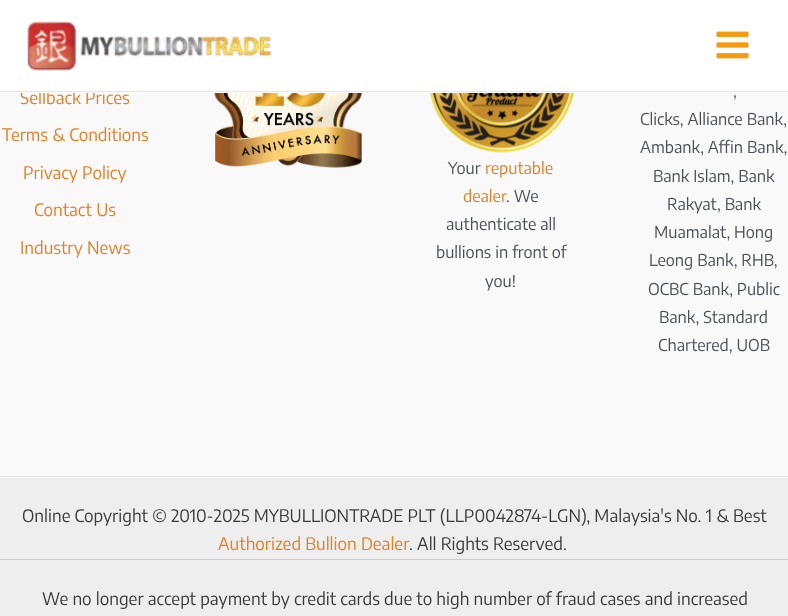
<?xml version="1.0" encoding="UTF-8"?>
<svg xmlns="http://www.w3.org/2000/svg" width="788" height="616">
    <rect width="100%" height="100%" fill="#FFFFFF"/>
    <rect x="0" y="93" width="788" height="383" fill="#F9F9F9"/>
    <text x="20" y="104" font-family="Encode Sans Condensed" font-size="17.1" fill="#E67E22">Sellback Prices</text>
    <rect x="21" y="90" width="85" height="3" fill="#FFFFFF"/>
    <rect x="0" y="91" width="788" height="1" fill="#E5E5E5"/>
    <image x="27" y="21" width="245" height="50" href="img_01.png"/>
    <image x="716" y="31" width="33" height="28" href="img_02.png"/>
    <text x="2" y="141" font-family="Encode Sans Condensed" font-size="17.1" fill="#E67E22">Terms &amp; Conditions</text>
    <text x="23" y="179" font-family="Encode Sans Condensed" font-size="17.1" fill="#E67E22">Privacy Policy</text>
    <text x="34" y="216" font-family="Encode Sans Condensed" font-size="17.1" fill="#E67E22">Contact Us</text>
    <text x="20" y="254" font-family="Encode Sans Condensed" font-size="17.1" fill="#E67E22">Industry News</text>
    <image x="214" y="93" width="148" height="75" href="img_03.png"/>
    <image x="429" y="93" width="146" height="60" href="img_04.png"/>
    <text x="448" y="174" font-family="Encode Sans Condensed" font-size="16.25" fill="#4B4F58">Your</text>
    <text x="485" y="174" font-family="Encode Sans Condensed" font-size="16.25" fill="#E67E22">reputable</text>
    <text x="463" y="202" font-family="Encode Sans Condensed" font-size="16.25" fill="#E67E22">dealer</text>
    <text x="506" y="202" font-family="Encode Sans Condensed" font-size="16.25" fill="#4B4F58">. We</text>
    <text x="446" y="230" font-family="Encode Sans Condensed" font-size="16.25" fill="#4B4F58">authenticate all</text>
    <text x="436" y="258" font-family="Encode Sans Condensed" font-size="16.25" fill="#4B4F58">bullions in front of</text>
    <text x="485" y="287" font-family="Encode Sans Condensed" font-size="16.25" fill="#4B4F58">you!</text>
    <text x="733" y="97" font-family="Encode Sans Condensed" font-size="16.25" fill="#4B4F58">,</text>
    <text font-family="Encode Sans Condensed" font-size="16.25" fill="#4B4F58">
        <tspan x="640" y="125">Clicks, Alliance Bank,</tspan>
        <tspan x="640" y="153">Ambank, Affin Bank,</tspan>
    </text>
    <text x="653" y="182" font-family="Encode Sans Condensed" font-size="16.25" fill="#4B4F58">Bank Islam, Bank</text>
    <text x="667" y="210" font-family="Encode Sans Condensed" font-size="16.25" fill="#4B4F58">Rakyat, Bank</text>
    <text x="654" y="238" font-family="Encode Sans Condensed" font-size="16.25" fill="#4B4F58">Muamalat, Hong</text>
    <text x="649" y="266" font-family="Encode Sans Condensed" font-size="16.25" fill="#4B4F58">Leong Bank, RHB,</text>
    <text x="648" y="295" font-family="Encode Sans Condensed" font-size="16.25" fill="#4B4F58">OCBC Bank, Public</text>
    <text x="659" y="323" font-family="Encode Sans Condensed" font-size="16.25" fill="#4B4F58">Bank, Standard</text>
    <text x="658" y="351" font-family="Encode Sans Condensed" font-size="16.25" fill="#4B4F58">Chartered, UOB</text>
    <rect x="0" y="478" width="788" height="138" fill="#EEEEEE"/>
    <rect x="0" y="476" width="788" height="1" fill="#E5E5E5"/>
    <text x="22" y="522" font-family="Encode Sans Condensed" font-size="17.1" fill="#3A3A3A">Online Copyright © 2010-2025 MYBULLIONTRADE PLT (LLP0042874-LGN), Malaysia's No. 1 &amp; Best</text>
    <text x="218" y="550" font-family="Encode Sans Condensed" font-size="17.1" fill="#E67E22">Authorized Bullion Dealer</text>
    <text x="409" y="550" font-family="Encode Sans Condensed" font-size="17.1" fill="#3A3A3A">. All Rights Reserved.</text>
    <rect x="0" y="559" width="788" height="1" fill="#CCCCCC"/>
    <text x="42" y="605" font-family="Encode Sans Condensed" font-size="17.1" fill="#3A3A3A">We no longer accept payment by credit cards due to high number of fraud cases and increased</text>
</svg>
